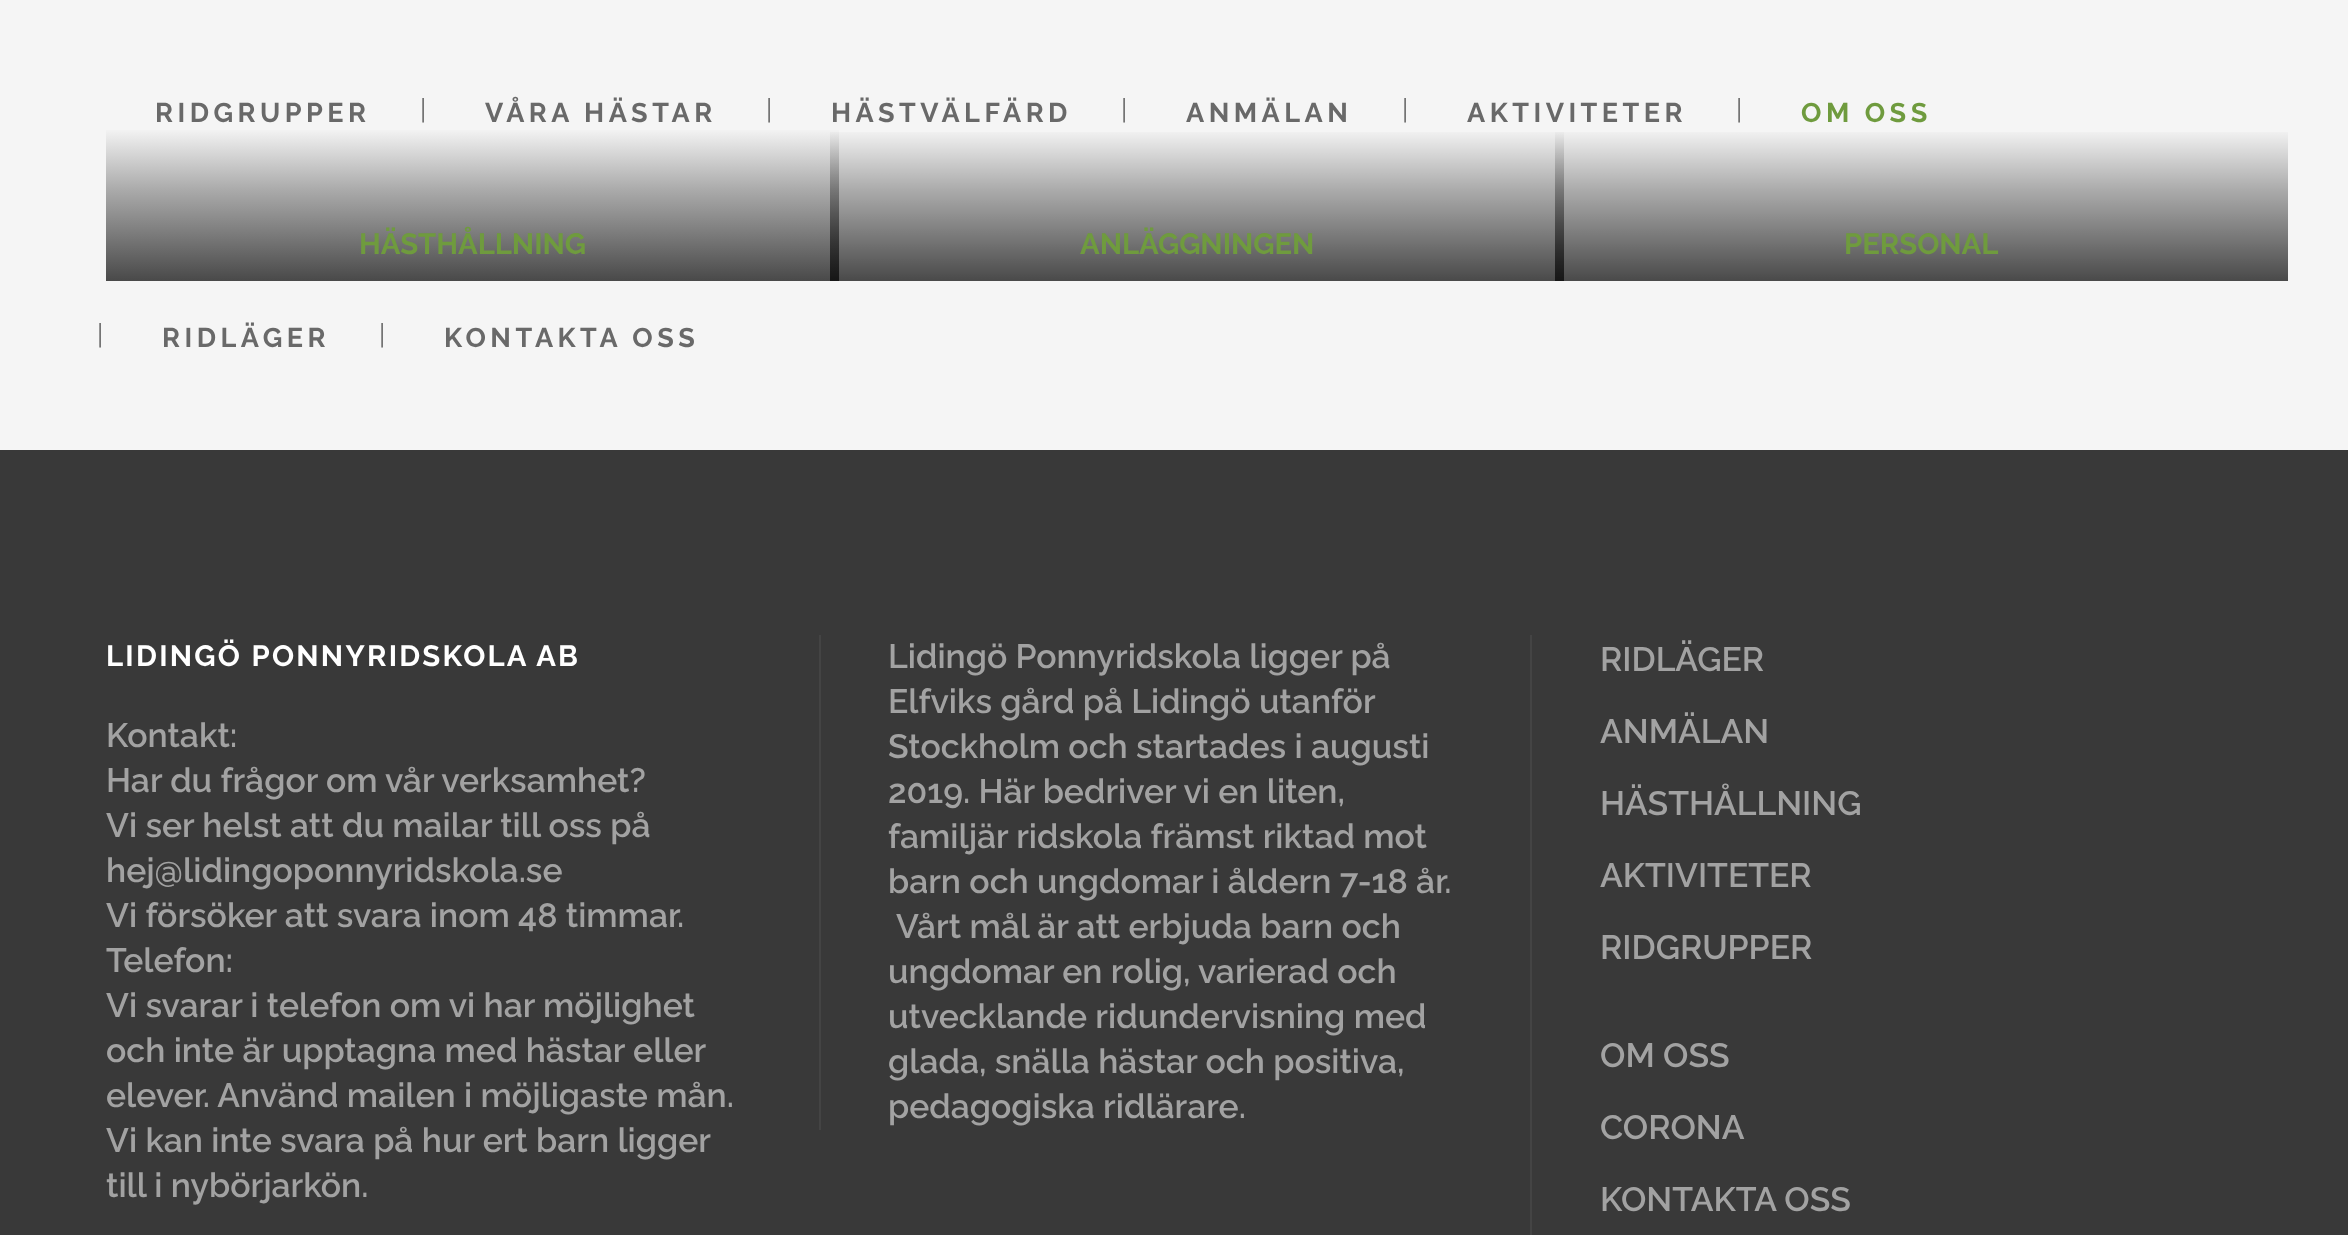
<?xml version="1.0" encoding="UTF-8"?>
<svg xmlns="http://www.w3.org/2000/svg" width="2348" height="1235">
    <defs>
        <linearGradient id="g1" gradientUnits="userSpaceOnUse" x1="473" y1="281" x2="473" y2="128"><stop offset="0" stop-color="#494949"/><stop offset="0.6" stop-color="#ABABAB"/><stop offset="1" stop-color="#F5F5F5"/></linearGradient>
        <linearGradient id="g2" gradientUnits="userSpaceOnUse" x1="1197" y1="281" x2="1197" y2="128"><stop offset="0" stop-color="#000000" stop-opacity="0.7"/><stop offset="0.6" stop-color="#000000" stop-opacity="0.3"/><stop offset="1" stop-color="#000000" stop-opacity="0"/></linearGradient>
        <linearGradient id="g3" gradientUnits="userSpaceOnUse" x1="1922" y1="281" x2="1922" y2="128"><stop offset="0" stop-color="#000000" stop-opacity="0.7"/><stop offset="0.6" stop-color="#000000" stop-opacity="0.3"/><stop offset="1" stop-color="#000000" stop-opacity="0"/></linearGradient>
    </defs>
    <rect width="100%" height="100%" fill="#F5F5F5"/>
    <text x="155" y="122" font-family="Raleway" font-size="27" font-weight="700" letter-spacing="4.5" fill="#696969">RIDGRUPPER</text>
    <text x="420" y="119" font-family="Raleway" font-size="27" fill="#696969">|</text>
    <text x="485" y="122" font-family="Raleway" font-size="27" font-weight="700" letter-spacing="4.5" fill="#696969">VÅRA HÄSTAR</text>
    <text x="766" y="119" font-family="Raleway" font-size="27" fill="#696969">|</text>
    <text x="831" y="122" font-family="Raleway" font-size="27" font-weight="700" letter-spacing="4.5" fill="#696969">HÄSTVÄLFÄRD</text>
    <text x="1121" y="119" font-family="Raleway" font-size="27" fill="#696969">|</text>
    <text x="1186" y="122" font-family="Raleway" font-size="27" font-weight="700" letter-spacing="4.5" fill="#696969">ANMÄLAN</text>
    <text x="1402" y="119" font-family="Raleway" font-size="27" fill="#696969">|</text>
    <text x="1467" y="122" font-family="Raleway" font-size="27" font-weight="700" letter-spacing="4.5" fill="#696969">AKTIVITETER</text>
    <text x="1736" y="119" font-family="Raleway" font-size="27" fill="#696969">|</text>
    <text x="1801" y="122" font-family="Raleway" font-size="27" font-weight="700" letter-spacing="4.5" fill="#6F9B3E">OM OSS</text>
    <text x="97" y="344" font-family="Raleway" font-size="27" fill="#696969">|</text>
    <text x="162" y="347" font-family="Raleway" font-size="27" font-weight="700" letter-spacing="4.5" fill="#696969">RIDLÄGER</text>
    <text x="379" y="344" font-family="Raleway" font-size="27" fill="#696969">|</text>
    <text x="444" y="347" font-family="Raleway" font-size="27" font-weight="700" letter-spacing="4.5" fill="#696969">KONTAKTA OSS</text>
    <rect x="106" y="130" width="733" height="151" fill="url(#g1)"/>
    <text x="359" y="254" font-family="Raleway" font-size="29.25" font-weight="700" fill="#6F9B3E">HÄSTHÅLLNING</text>
    <rect x="830" y="132" width="734" height="149" fill="url(#g2)"/>
    <text x="1080" y="254" font-family="Raleway" font-size="29.25" font-weight="700" fill="#6F9B3E">ANLÄGGNINGEN</text>
    <rect x="1555" y="132" width="733" height="149" fill="url(#g3)"/>
    <text x="1844" y="254" font-family="Raleway" font-size="29.25" font-weight="700" fill="#6F9B3E">PERSONAL</text>
    <rect x="0" y="450" width="2348" height="785" fill="#393939"/>
    <text x="106" y="666" font-family="Raleway" font-size="29.25" font-weight="700" letter-spacing="2.25" fill="#FFFFFF">LIDINGÖ PONNYRIDSKOLA AB</text>
    <text font-family="Raleway" font-size="33.75" font-weight="600" fill="#A2A2A2">
        <tspan x="106" y="747">Kontakt:</tspan>
        <tspan x="106" y="792">Har du frågor om vår verksamhet?</tspan>
        <tspan x="106" y="837">Vi ser helst att du mailar till oss på</tspan>
        <tspan x="106" y="882">hej@lidingoponnyridskola.se</tspan>
        <tspan x="106" y="927">Vi försöker att svara inom 48 timmar.</tspan>
        <tspan x="106" y="972">Telefon:</tspan>
        <tspan x="106" y="1017">Vi svarar i telefon om vi har möjlighet</tspan>
        <tspan x="106" y="1062">och inte är upptagna med hästar eller</tspan>
        <tspan x="106" y="1107">elever. Använd mailen i möjligaste mån.</tspan>
        <tspan x="106" y="1152">Vi kan inte svara på hur ert barn ligger</tspan>
        <tspan x="106" y="1197">till i nybörjarkön.</tspan>
    </text>
    <rect x="819" y="635" width="2" height="495" fill="#444444"/>
    <text font-family="Raleway" font-size="33.75" font-weight="600" fill="#A2A2A2">
        <tspan x="888" y="668">Lidingö Ponnyridskola ligger på</tspan>
        <tspan x="888" y="713">Elfviks gård på Lidingö utanför</tspan>
        <tspan x="888" y="758">Stockholm och startades i augusti</tspan>
        <tspan x="888" y="803">2019. Här bedriver vi en liten,</tspan>
        <tspan x="888" y="848">familjär ridskola främst riktad mot</tspan>
        <tspan x="888" y="893">barn och ungdomar i åldern 7-18 år.</tspan>
    </text>
    <text x="896" y="938" font-family="Raleway" font-size="33.75" font-weight="600" fill="#A2A2A2">Vårt mål är att erbjuda barn och</text>
    <text font-family="Raleway" font-size="33.75" font-weight="600" fill="#A2A2A2">
        <tspan x="888" y="983">ungdomar en rolig, varierad och</tspan>
        <tspan x="888" y="1028">utvecklande ridundervisning med</tspan>
        <tspan x="888" y="1073">glada, snälla hästar och positiva,</tspan>
        <tspan x="888" y="1118">pedagogiska ridlärare.</tspan>
    </text>
    <rect x="1530" y="635" width="2" height="600" fill="#444444"/>
    <text x="1600" y="671" font-family="Raleway" font-size="33.75" font-weight="600" fill="#A2A2A2">RIDLÄGER</text>
    <text x="1600" y="743" font-family="Raleway" font-size="33.75" font-weight="600" fill="#A2A2A2">ANMÄLAN</text>
    <text x="1600" y="815" font-family="Raleway" font-size="33.75" font-weight="600" fill="#A2A2A2">HÄSTHÅLLNING</text>
    <text x="1600" y="887" font-family="Raleway" font-size="33.75" font-weight="600" fill="#A2A2A2">AKTIVITETER</text>
    <text x="1600" y="959" font-family="Raleway" font-size="33.75" font-weight="600" fill="#A2A2A2">RIDGRUPPER</text>
    <text x="1600" y="1067" font-family="Raleway" font-size="33.75" font-weight="600" fill="#A2A2A2">OM OSS</text>
    <text x="1600" y="1139" font-family="Raleway" font-size="33.75" font-weight="600" fill="#A2A2A2">CORONA</text>
    <text x="1600" y="1211" font-family="Raleway" font-size="33.75" font-weight="600" fill="#A2A2A2">KONTAKTA OSS</text>
</svg>
